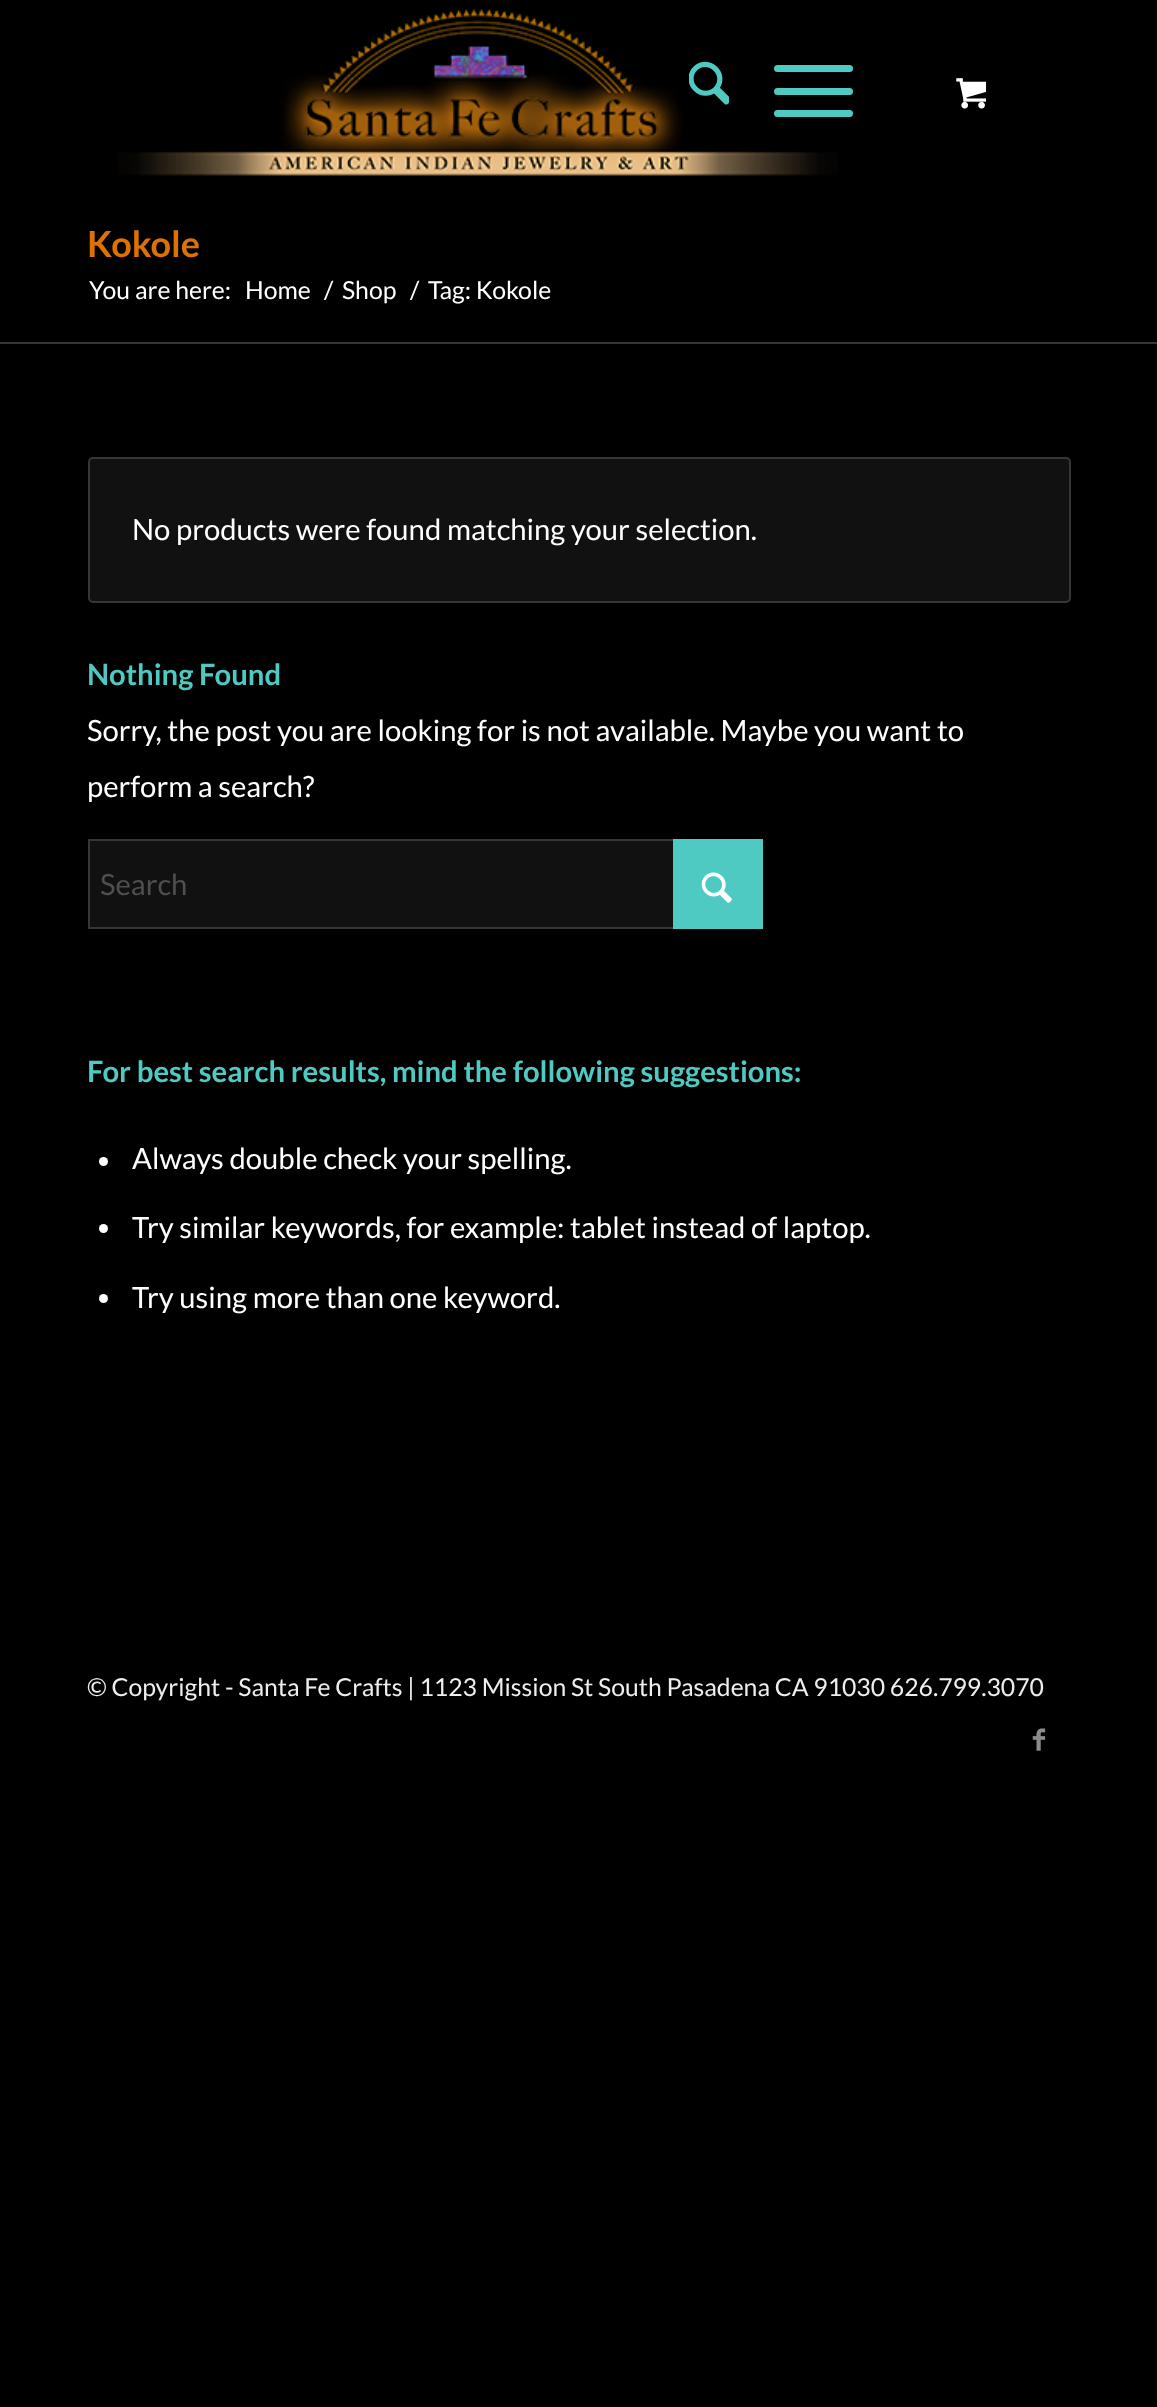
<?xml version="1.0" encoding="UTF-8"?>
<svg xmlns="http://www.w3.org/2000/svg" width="1157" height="2407">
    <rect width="100%" height="100%" fill="#000000"/>
    <image x="118" y="8" width="720" height="168" href="img_01.png"/>
    <image x="689" y="61" width="40" height="44" href="img_02.png"/>
    <rect x="774" y="88" width="79" height="7" rx="3.5" fill="#4ECAC2"/>
    <rect x="774" y="65" width="79" height="7" rx="3.5" fill="#4ECAC2"/>
    <rect x="774" y="110" width="79" height="7" rx="3.5" fill="#4ECAC2"/>
    <image x="956" y="78" width="30" height="31" href="img_03.png"/>
    <text x="87" y="257" font-family="Lato" font-size="36" font-weight="700" fill="#DD7200">Kokole</text>
    <text x="89" y="299" font-family="Lato" font-size="24.75" fill="#FFFFFF">You are here:</text>
    <text x="245" y="299" font-family="Lato" font-size="24.75" fill="#FFFFFF">Home</text>
    <text x="324" y="299" font-family="Lato" font-size="24.75" fill="#FFFFFF">/</text>
    <text x="342" y="299" font-family="Lato" font-size="24.75" fill="#FFFFFF">Shop</text>
    <text x="410" y="299" font-family="Lato" font-size="24.75" fill="#FFFFFF">/</text>
    <text x="428" y="299" font-family="Lato" font-size="24.75" fill="#FFFFFF">Tag: Kokole</text>
    <rect x="0" y="342" width="1157" height="2" fill="#363636"/>
    <rect x="89" y="458" width="981" height="144" rx="4" fill="#111111" stroke="#363636" stroke-width="2"/>
    <text x="132" y="540" font-family="Lato" font-size="29.25" fill="#FFFFFF">No products were found matching your selection.</text>
    <text x="87" y="685" font-family="Lato" font-size="29.25" font-weight="700" fill="#4ECAC2">Nothing Found</text>
    <text font-family="Lato" font-size="29.25" fill="#FFFFFF">
        <tspan x="87" y="741">Sorry, the post you are looking for is not available. Maybe you want to</tspan>
        <tspan x="87" y="797">perform a search?</tspan>
    </text>
    <rect x="90" y="841" width="583" height="86" fill="#111111"/>
    <rect x="89" y="840" width="673" height="88" fill="none" stroke="#363636" stroke-width="2"/>
    <rect x="673" y="839" width="90" height="90" fill="#4ECAC2"/>
    <text x="100" y="895" font-family="Lato" font-size="29.25" fill="#4F4F4F">Search</text>
    <image x="701" y="872" width="31" height="31" href="img_04.png"/>
    <text x="87" y="1082" font-family="Lato" font-size="29.25" font-weight="700" fill="#4ECAC2">For best search results, mind the following suggestions:</text>
    <circle cx="103.5" cy="1161.5" r="4.5" fill="#FFFFFF"/>
    <text x="132" y="1169" font-family="Lato" font-size="29.25" fill="#FFFFFF">Always double check your spelling.</text>
    <circle cx="103.5" cy="1228.5" r="4.5" fill="#FFFFFF"/>
    <text x="132" y="1238" font-family="Lato" font-size="29.25" fill="#FFFFFF">Try similar keywords, for example: tablet instead of laptop.</text>
    <circle cx="103.5" cy="1298.5" r="4.5" fill="#FFFFFF"/>
    <text x="132" y="1308" font-family="Lato" font-size="29.25" fill="#FFFFFF">Try using more than one keyword.</text>
    <text x="87" y="1696" font-family="Lato" font-size="24.75" fill="#EEEEEE">© Copyright - Santa Fe Crafts | 1123 Mission St South Pasadena CA 91030 626.799.3070</text>
    <image x="1032" y="1728" width="14" height="23" href="img_05.png"/>
</svg>
